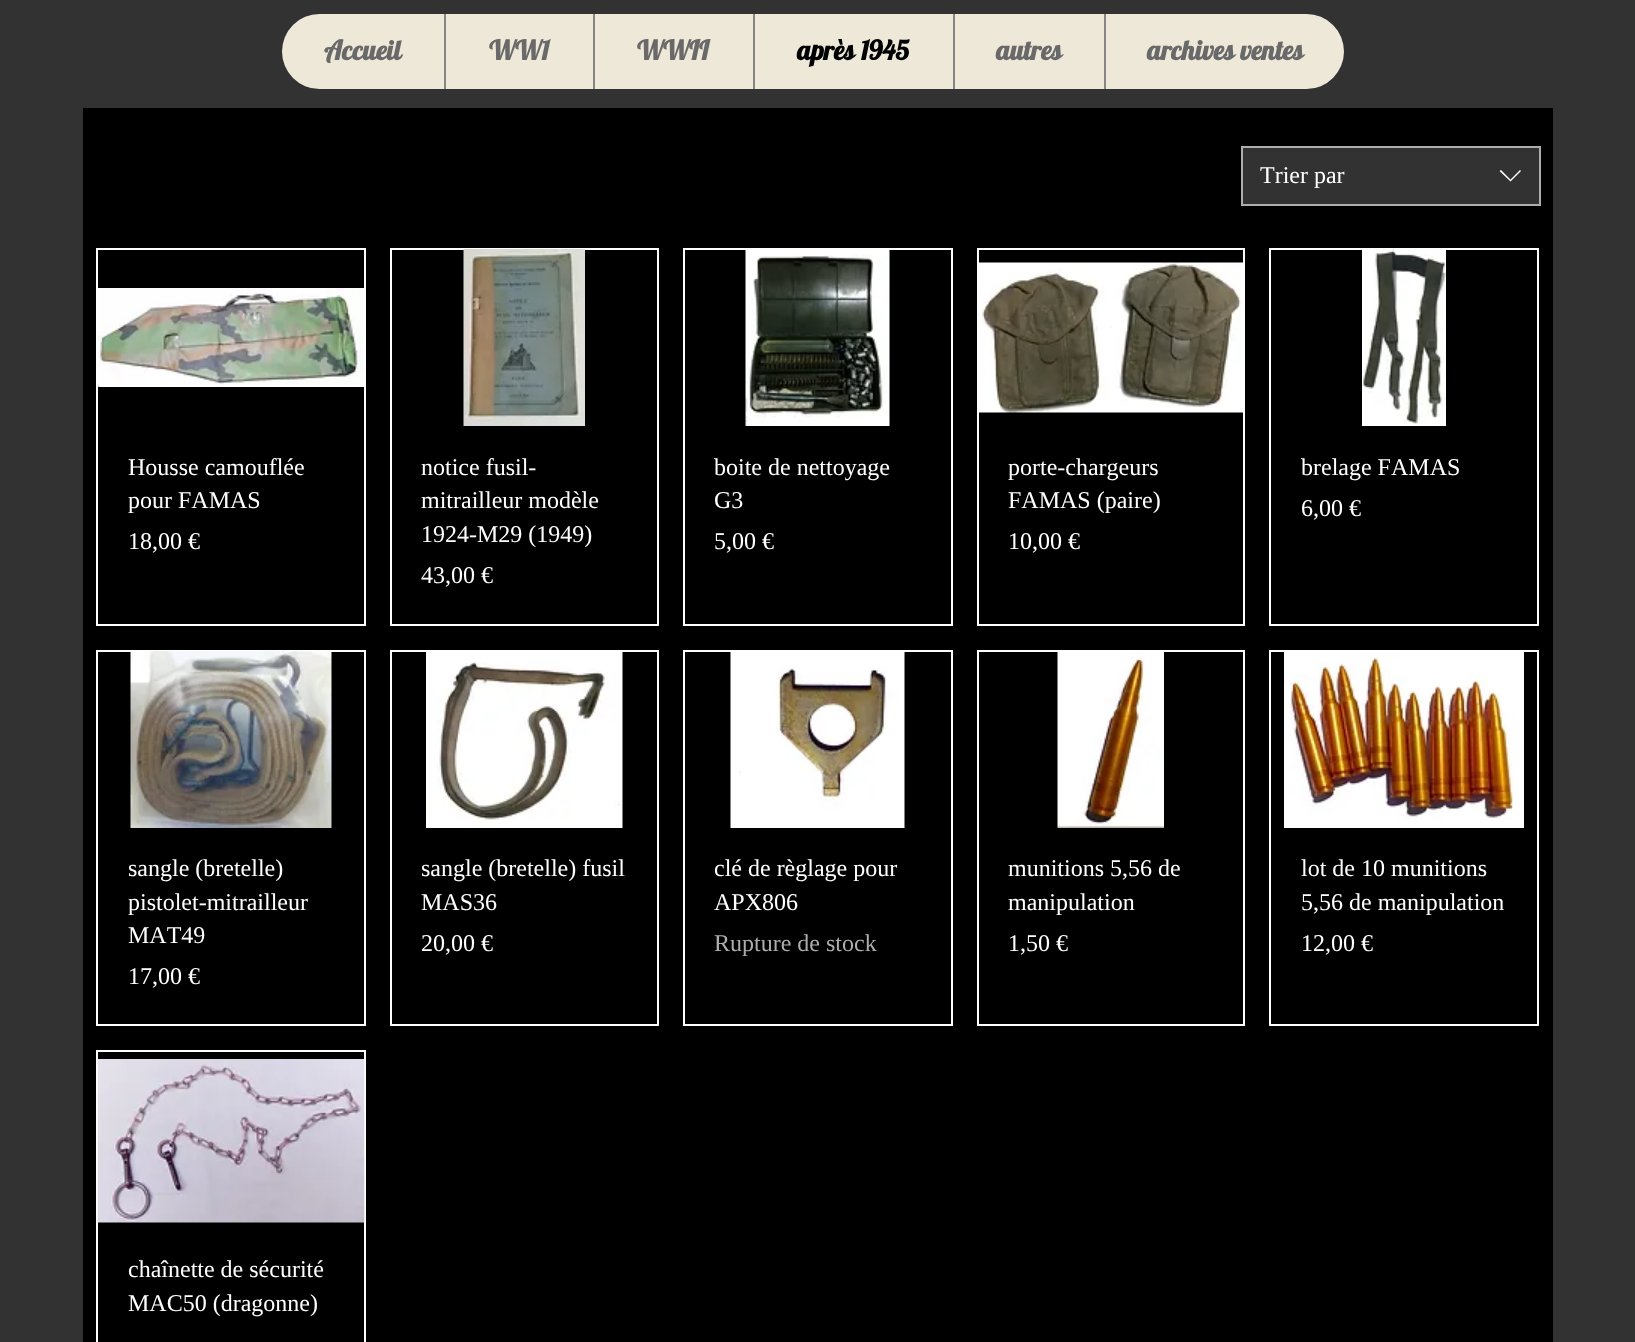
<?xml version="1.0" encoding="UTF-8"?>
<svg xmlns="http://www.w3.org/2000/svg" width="1635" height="1342">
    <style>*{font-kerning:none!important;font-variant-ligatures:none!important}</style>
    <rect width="100%" height="100%" fill="#323232"/>
    <rect x="282" y="14" width="1062" height="75" rx="37.5" fill="#EEE8D8"/>
    <text x="324" y="60" font-family="Lobster" font-size="27" font-weight="700" fill="#696969">Accueil</text>
    <rect x="444" y="14" width="2" height="75" fill="#868686"/>
    <text x="489" y="60" font-family="Lobster" font-size="27" font-weight="700" fill="#696969">WW1</text>
    <rect x="593" y="14" width="2" height="75" fill="#868686"/>
    <text x="637" y="60" font-family="Lobster" font-size="27" font-weight="700" fill="#696969">WWII</text>
    <rect x="753" y="14" width="2" height="75" fill="#868686"/>
    <text x="797" y="60" font-family="Lobster" font-size="27" font-weight="700" fill="#000000">après 1945</text>
    <rect x="953" y="14" width="2" height="75" fill="#868686"/>
    <text x="996" y="60" font-family="Lobster" font-size="27" font-weight="700" fill="#696969">autres</text>
    <rect x="1104" y="14" width="2" height="75" fill="#868686"/>
    <text x="1147" y="60" font-family="Lobster" font-size="27" font-weight="700" fill="#696969">archives ventes</text>
    <rect x="83" y="108" width="1470" height="1234" fill="#000000"/>
    <rect x="1242" y="147" width="298" height="58" fill="#323232" stroke="#ADADAD" stroke-width="2"/>
    <text x="1260" y="183" font-family="Liberation Serif" font-size="24" fill="#FFFFFF">Trier par</text>
    <path d="M 1520 170 L 1521 171 L 1510.5 181.5 L 1499.5 171 L 1501 170 L 1510.5 179.5 Z" fill="#FFFFFF" fill-rule="evenodd"/>
    <rect x="97" y="249" width="268" height="376" fill="none" stroke="#FFFFFF" stroke-width="2"/>
    <image x="97" y="288" width="267" height="99" href="img_01.png"/>
    <text font-family="Liberation Serif" font-size="24" fill="#FFFFFF">
        <tspan x="128" y="475">Housse camouflée</tspan>
        <tspan x="128" y="508">pour FAMAS</tspan>
        <tspan x="128" y="549">18,00 €</tspan>
    </text>
    <rect x="391" y="249" width="267" height="376" fill="none" stroke="#FFFFFF" stroke-width="2"/>
    <image x="463" y="249" width="122" height="177" href="img_02.png"/>
    <text font-family="Liberation Serif" font-size="24" fill="#FFFFFF">
        <tspan x="421" y="475">notice fusil-</tspan>
        <tspan x="421" y="508">mitrailleur modèle</tspan>
        <tspan x="421" y="542">1924-M29 (1949)</tspan>
        <tspan x="421" y="583">43,00 €</tspan>
    </text>
    <rect x="684" y="249" width="268" height="376" fill="none" stroke="#FFFFFF" stroke-width="2"/>
    <image x="745" y="250" width="145" height="176" href="img_03.png"/>
    <text font-family="Liberation Serif" font-size="24" fill="#FFFFFF">
        <tspan x="714" y="475">boite de nettoyage</tspan>
        <tspan x="714" y="508">G3</tspan>
        <tspan x="714" y="549">5,00 €</tspan>
    </text>
    <rect x="978" y="249" width="266" height="376" fill="none" stroke="#FFFFFF" stroke-width="2"/>
    <image x="978" y="262" width="265" height="151" href="img_04.png"/>
    <text font-family="Liberation Serif" font-size="24" fill="#FFFFFF">
        <tspan x="1008" y="475">porte-chargeurs</tspan>
        <tspan x="1008" y="508">FAMAS (paire)</tspan>
        <tspan x="1008" y="549">10,00 €</tspan>
    </text>
    <rect x="1270" y="249" width="268" height="376" fill="none" stroke="#FFFFFF" stroke-width="2"/>
    <image x="1362" y="249" width="84" height="177" href="img_05.png"/>
    <text font-family="Liberation Serif" font-size="24" fill="#FFFFFF">
        <tspan x="1301" y="475">brelage FAMAS</tspan>
        <tspan x="1301" y="516">6,00 €</tspan>
    </text>
    <rect x="97" y="651" width="268" height="374" fill="none" stroke="#FFFFFF" stroke-width="2"/>
    <image x="130" y="651" width="202" height="177" href="img_06.png"/>
    <text font-family="Liberation Serif" font-size="24" fill="#FFFFFF">
        <tspan x="128" y="876">sangle (bretelle)</tspan>
        <tspan x="128" y="910">pistolet-mitrailleur</tspan>
        <tspan x="128" y="943">MAT49</tspan>
        <tspan x="128" y="984">17,00 €</tspan>
    </text>
    <rect x="391" y="651" width="267" height="374" fill="none" stroke="#FFFFFF" stroke-width="2"/>
    <image x="426" y="652" width="197" height="176" href="img_07.png"/>
    <text font-family="Liberation Serif" font-size="24" fill="#FFFFFF">
        <tspan x="421" y="876">sangle (bretelle) fusil</tspan>
        <tspan x="421" y="910">MAS36</tspan>
        <tspan x="421" y="951">20,00 €</tspan>
    </text>
    <rect x="684" y="651" width="268" height="374" fill="none" stroke="#FFFFFF" stroke-width="2"/>
    <image x="730" y="652" width="175" height="176" href="img_08.png"/>
    <text font-family="Liberation Serif" font-size="24" fill="#FFFFFF">
        <tspan x="714" y="876">clé de règlage pour</tspan>
        <tspan x="714" y="910">APX806</tspan>
    </text>
    <text x="714" y="951" font-family="Liberation Serif" font-size="24" fill="#ADADAD">Rupture de stock</text>
    <rect x="978" y="651" width="266" height="374" fill="none" stroke="#FFFFFF" stroke-width="2"/>
    <image x="1057" y="651" width="107" height="177" href="img_09.png"/>
    <text font-family="Liberation Serif" font-size="24" fill="#FFFFFF">
        <tspan x="1008" y="876">munitions 5,56 de</tspan>
        <tspan x="1008" y="910">manipulation</tspan>
        <tspan x="1008" y="951">1,50 €</tspan>
    </text>
    <rect x="1270" y="651" width="268" height="374" fill="none" stroke="#FFFFFF" stroke-width="2"/>
    <image x="1284" y="652" width="240" height="176" href="img_10.png"/>
    <text font-family="Liberation Serif" font-size="24" fill="#FFFFFF">
        <tspan x="1301" y="876">lot de 10 munitions</tspan>
        <tspan x="1301" y="910">5,56 de manipulation</tspan>
        <tspan x="1301" y="951">12,00 €</tspan>
    </text>
    <rect x="97" y="1051" width="268" height="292" fill="none" stroke="#FFFFFF" stroke-width="2"/>
    <image x="97" y="1059" width="268" height="164" href="img_11.png"/>
    <text font-family="Liberation Serif" font-size="24" fill="#FFFFFF">
        <tspan x="128" y="1277">chaînette de sécurité</tspan>
        <tspan x="128" y="1311">MAC50 (dragonne)</tspan>
    </text>
</svg>
